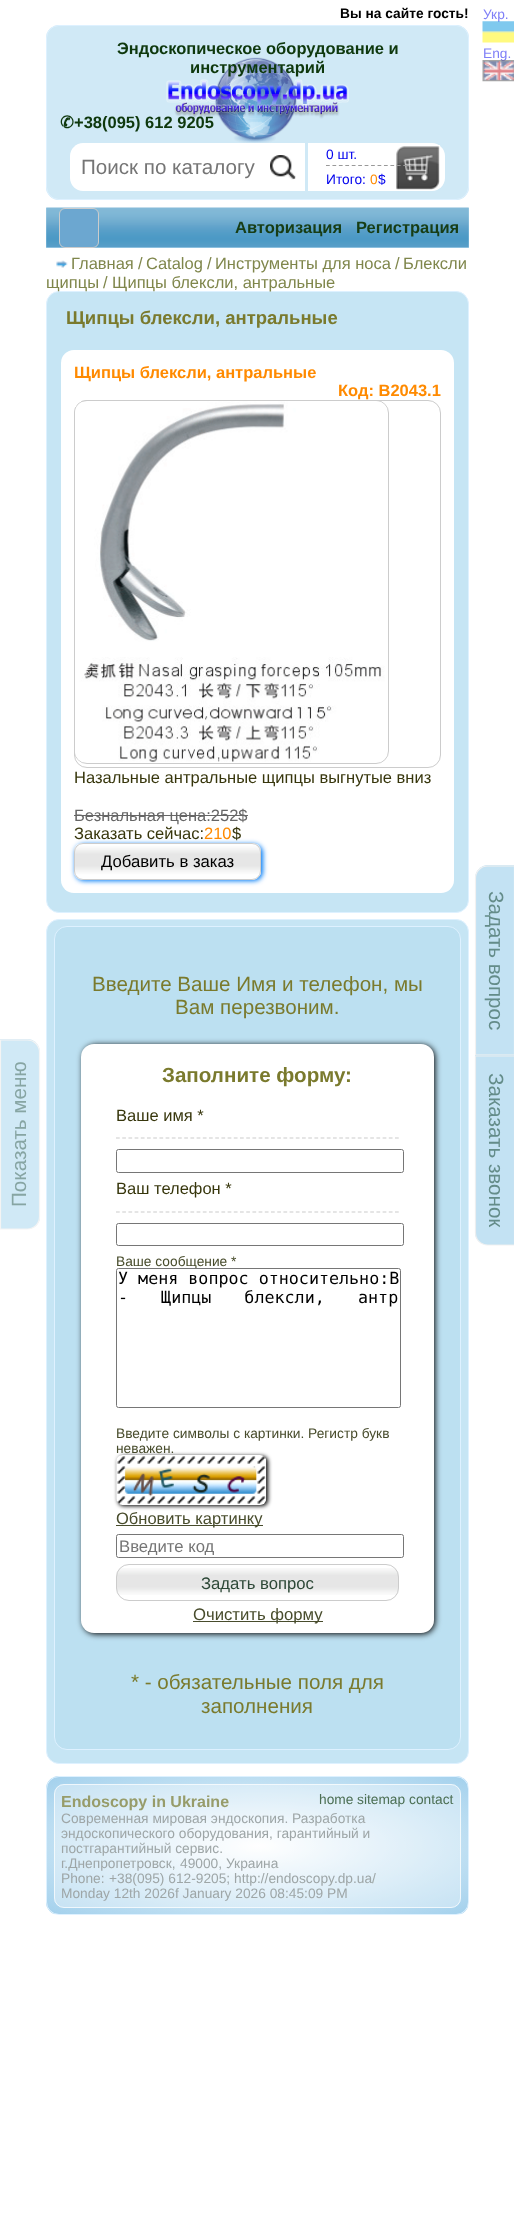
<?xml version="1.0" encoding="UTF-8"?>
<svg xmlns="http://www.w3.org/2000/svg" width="514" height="2228">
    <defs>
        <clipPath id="clip1"><path d="M 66 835 H 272 V 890 H 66 Z M 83 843 H 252 C 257 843 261 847 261 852 V 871 C 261 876 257 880 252 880 H 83 C 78 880 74 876 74 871 V 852 C 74 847 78 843 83 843 Z" clip-rule="evenodd"/></clipPath>
        <filter id="blur1" x="-50%" y="-200%" width="200%" height="500%"><feGaussianBlur stdDeviation="2.5"/></filter>
        <filter id="blur2" x="-50%" y="-200%" width="200%" height="500%"><feGaussianBlur stdDeviation="3"/></filter>
        <filter id="blur3" x="-50%" y="-200%" width="200%" height="500%"><feGaussianBlur stdDeviation="2"/></filter>
        <clipPath id="clip2"><rect x="119" y="1536" width="282" height="19"/></clipPath>
        <clipPath id="clip3"><rect x="46" y="1776" width="423" height="139" rx="13"/></clipPath>
        <radialGradient id="g1" gradientUnits="userSpaceOnUse" cx="0" cy="0" r="1" gradientTransform="matrix(297 0 0 96 258 1709)"><stop offset="0" stop-color="#FFFFFF"/><stop offset="0.75" stop-color="#B9DCF1"/><stop offset="0.97" stop-color="#A6D2ED"/><stop offset="1" stop-color="#A2D0EC"/></radialGradient>
        <radialGradient id="g2" gradientUnits="userSpaceOnUse" cx="0" cy="0" r="1" gradientTransform="matrix(297 0 0 96 -162 1846)"><stop offset="0" stop-color="#FFFFFF"/><stop offset="0.75" stop-color="#B9DCF1"/><stop offset="0.97" stop-color="#A6D2ED"/><stop offset="1" stop-color="#A2D0EC"/></radialGradient>
        <radialGradient id="g3" gradientUnits="userSpaceOnUse" cx="0" cy="0" r="1" gradientTransform="matrix(297 0 0 96 258 1846)"><stop offset="0" stop-color="#FFFFFF"/><stop offset="0.75" stop-color="#B9DCF1"/><stop offset="0.97" stop-color="#A6D2ED"/><stop offset="1" stop-color="#A2D0EC"/></radialGradient>
    </defs>
    <rect width="100%" height="100%" fill="#FFFFFF"/>
    <text x="340" y="18" font-family="Liberation Sans" font-size="13.75" font-weight="700" fill="#000000">Вы на сайте гость!</text>
    <rect x="46" y="25" width="423" height="175" rx="13" fill="#D0E9F6"/>
    <image x="166" y="57" width="183" height="86" href="img_01.png"/>
    <rect x="46.5" y="25.5" width="422" height="174" rx="12.5" fill="none" stroke="#DEF1FF"/>
    <text x="117" y="54" font-family="Liberation Sans" font-size="16.5" font-weight="700" fill="#0E380D">Эндоскопическое оборудование и</text>
    <text x="190" y="73" font-family="Liberation Sans" font-size="16.5" font-weight="700" fill="#0E380D">инструментарий</text>
    <text x="60" y="128" font-family="DejaVu Sans" font-size="16.5" font-weight="700" fill="#0E380D">✆</text>
    <text x="74" y="128" font-family="Liberation Sans" font-size="16.5" font-weight="700" fill="#0E380D">+38(095) 612 9205</text>
    <path d="M 83 143 H 305 V 191 H 83 C 76 191 70 185 70 178 V 156 C 70 149 76 143 83 143 Z" fill="#FFFFFF"/>
    <text x="81" y="174" font-family="Liberation Sans" font-size="20.6" fill="#757575">Поиск по каталогу</text>
    <image x="270" y="155" width="26" height="25" href="img_02.png"/>
    <path d="M 308 143 H 432 C 439 143 445 149 445 156 V 178 C 445 185 439 191 432 191 H 308 Z" fill="#FFFFFF"/>
    <image x="396" y="145" width="44" height="45" href="img_03.png"/>
    <text x="326" y="159" font-family="Liberation Sans" font-size="13.75" fill="#0000EE">0 шт.</text>
    <path d="M 326 165.5 H 414" fill="none" stroke="#999999" stroke-width="1.2" stroke-dasharray="3.75 2.69"/>
    <text x="326" y="184" font-family="Liberation Sans" font-size="13.75" fill="#0000EE">Итого:</text>
    <text x="370" y="184" font-family="Liberation Sans" font-size="13.75" fill="#FF8A00">0</text>
    <text x="378" y="184" font-family="Liberation Sans" font-size="13.75" fill="#0000EE">$</text>
    <path d="M 0 1229 V 1039 H 28 C 34 1039 40 1045 40 1052 V 1217 C 40 1224 34 1229 28 1229 Z" fill="#D0E9F6"/>
    <path d="M 0.5 1229 V 1040 H 27.5 C 34 1040 39.5 1045.5 39.5 1052 V 1217 C 39.5 1223.5 34 1229 27.5 1229 Z" fill="none" stroke="#F4F4F4" stroke-width="1.2"/>
    <text x="26" y="1207" transform="rotate(-90 26 1207)" font-family="Liberation Sans" font-size="20.6" fill="#87A5A3">Показать меню</text>
    <rect x="46" y="208" width="423" height="40" fill="#BCDFF2"/>
    <image x="46" y="207" width="423" height="41" href="img_04.png"/>
    <rect x="59.5" y="208.5" width="39" height="39" rx="5.5" fill="#6CA7D0" stroke="#CCCCCC"/>
    <text x="235" y="233" font-family="Liberation Sans" font-size="16.5" font-weight="700" fill="#173D15">Авторизация</text>
    <text x="356" y="233" font-family="Liberation Sans" font-size="16.5" font-weight="700" fill="#173D15">Регистрация</text>
    <image x="56" y="260" width="12" height="8" href="img_05.png"/>
    <text x="71" y="269" font-family="Liberation Sans" font-size="16.5" fill="#7F864B">Главная</text>
    <text x="138" y="269" font-family="Liberation Sans" font-size="16.5" fill="#7F864B">/</text>
    <text x="146" y="269" font-family="Liberation Sans" font-size="16.5" fill="#7F864B">Catalog</text>
    <text x="207" y="269" font-family="Liberation Sans" font-size="16.5" fill="#7F864B">/</text>
    <text x="215" y="269" font-family="Liberation Sans" font-size="16.5" fill="#7F864B">Инструменты для носа</text>
    <text x="395" y="269" font-family="Liberation Sans" font-size="16.5" fill="#7F864B">/</text>
    <text x="403" y="269" font-family="Liberation Sans" font-size="16.5" fill="#7F864B">Блексли</text>
    <rect x="46.5" y="291.5" width="422" height="621" rx="12.5" fill="#C6E5F4" stroke="#DEF1FF"/>
    <text x="46" y="288" font-family="Liberation Sans" font-size="16.5" fill="#7F864B">щипцы</text>
    <text x="103" y="288" font-family="Liberation Sans" font-size="16.5" fill="#7F864B">/</text>
    <text x="112" y="288" font-family="Liberation Sans" font-size="16.5" fill="#7F864B">Щипцы блексли, антральные</text>
    <text x="66" y="324" font-family="Liberation Sans" font-size="18.5" font-weight="700" fill="#7A7A2D">Щипцы блексли, антральные</text>
    <rect x="61" y="350" width="393" height="543" rx="13" fill="#FFFFFF"/>
    <text x="74" y="378" font-family="Liberation Sans" font-size="16.5" font-weight="700" fill="#FF8A00">Щипцы блексли, антральные</text>
    <text x="338" y="396" font-family="Liberation Sans" font-size="16.5" font-weight="700" fill="#FF8A00">Код: B2043.1</text>
    <rect x="74.5" y="400.5" width="366" height="367" rx="12.5" fill="none" stroke="#CCCCCC"/>
    <rect x="74.5" y="400.5" width="314" height="363" rx="12.5" fill="none" stroke="#CCCCCC"/>
    <image x="75" y="401" width="312" height="361" href="img_06.png"/>
    <text x="74" y="783" font-family="Liberation Sans" font-size="16.5" fill="#37360C">Назальные антральные щипцы выгнутые вниз</text>
    <text x="74" y="821" font-family="Liberation Sans" font-size="16.5" fill="#666666">Безнальная цена:252$</text>
    <rect x="74" y="815" width="174" height="1" fill="#666666"/>
    <g clip-path="url(#clip1)">
        <rect x="75" y="844" width="188" height="37" rx="9" fill="#057BF7" filter="url(#blur1)"/>
    </g>
    <text x="74" y="839" font-family="Liberation Sans" font-size="16.5" fill="#37360C">Заказать сейчас:</text>
    <text x="204" y="839" font-family="Liberation Sans" font-size="16.5" fill="#FF8A00">210</text>
    <text x="232" y="839" font-family="Liberation Sans" font-size="16.5" fill="#37360C">$</text>
    <image x="74" y="844" width="187" height="31" href="img_07.png"/>
    <rect x="74.5" y="843.5" width="186" height="36" rx="8.5" fill="none" stroke="#CCCCCC"/>
    <text x="101" y="867" font-family="Liberation Sans" font-size="16.7" fill="#000000">Добавить в заказ</text>
    <rect x="46.5" y="919.5" width="422" height="844" rx="12.5" fill="#C6E5F4" stroke="#DEF1FF"/>
    <rect x="54.5" y="926.5" width="406" height="823" rx="12.5" fill="#BCE0F1" stroke="#DEF1FF"/>
    <text x="92" y="991" font-family="Liberation Sans" font-size="20.6" fill="#7A7A2D">Введите Ваше Имя и телефон, мы</text>
    <text x="175" y="1014" font-family="Liberation Sans" font-size="20.6" fill="#7A7A2D">Вам перезвоним.</text>
    <rect x="83" y="1045" width="352" height="589" rx="13" fill="#000000" filter="url(#blur2)"/>
    <rect x="81" y="1044" width="353" height="589" rx="13" fill="#FFFFFF"/>
    <text x="162" y="1082" font-family="Liberation Sans" font-size="20.6" font-weight="700" fill="#7A7A2D">Заполните форму:</text>
    <text x="116" y="1121" font-family="Liberation Sans" font-size="16.5" fill="#37360C">Ваше имя *</text>
    <path d="M 116 1138 H 399" fill="none" stroke="#CCCCCC" stroke-width="1.2" stroke-dasharray="3.75 2.45"/>
    <rect x="116.5" y="1149.5" width="287" height="23" rx="2" fill="none" stroke="#767676"/>
    <text x="116" y="1194" font-family="Liberation Sans" font-size="16.5" fill="#37360C">Ваш телефон *</text>
    <path d="M 116 1212 H 399" fill="none" stroke="#CCCCCC" stroke-width="1.2" stroke-dasharray="3.75 2.45"/>
    <rect x="116.5" y="1223.5" width="287" height="22" rx="2" fill="none" stroke="#767676"/>
    <text x="116" y="1266" font-family="Liberation Sans" font-size="13.75" fill="#484C2C">Ваше сообщение *</text>
    <rect x="116.5" y="1268.5" width="284" height="139" rx="2" fill="#FFFFFF" stroke="#767676"/>
    <text font-family="DejaVu Sans Mono" font-size="16.7" fill="#000000">
        <tspan x="118" y="1284">У меня вопрос относительно:B</tspan>
        <tspan x="118" y="1303" word-spacing="23">- Щипцы блексли,</tspan>
    </text>
    <text x="358" y="1303" font-family="DejaVu Sans Mono" font-size="16.7" fill="#000000">антр</text>
    <text font-family="Liberation Sans" font-size="13.75" fill="#484C2C">
        <tspan x="116" y="1438">Введите символы с картинки. Регистр букв</tspan>
        <tspan x="116" y="1453">неважен.</tspan>
    </text>
    <rect x="118" y="1456" width="150" height="50" rx="6" fill="#000000" filter="url(#blur3)"/>
    <image x="116" y="1455" width="151" height="50" href="img_08.png"/>
    <rect x="116" y="1525" width="147" height="1" fill="#484C2C"/>
    <text x="116" y="1524" font-family="Liberation Sans" font-size="16.5" fill="#484C2C">Обновить картинку</text>
    <rect x="116.5" y="1534.5" width="287" height="23" rx="2" fill="none" stroke="#767676"/>
    <g clip-path="url(#clip2)">
        <text x="119" y="1552" font-family="Liberation Sans" font-size="16.7" fill="#757575">Введите код</text>
    </g>
    <image x="116" y="1568" width="283" height="27" href="img_09.png"/>
    <rect x="116.5" y="1564.5" width="282" height="36" rx="12.5" fill="none" stroke="#CCCCCC"/>
    <text x="201" y="1589" font-family="Liberation Sans" font-size="16.7" fill="#2D4837">Задать вопрос</text>
    <rect x="193" y="1621" width="130" height="1" fill="#484C2C"/>
    <text x="193" y="1620" font-family="Liberation Sans" font-size="16.7" fill="#484C2C">Очистить форму</text>
    <text x="131" y="1689" font-family="Liberation Sans" font-size="20.6" fill="#7A7A2D">* - обязательные поля для</text>
    <text x="201" y="1713" font-family="Liberation Sans" font-size="20.6" fill="#7A7A2D">заполнения</text>
    <g clip-path="url(#clip3)">
        <rect x="48" y="1776" width="420" height="2" fill="url(#g1)"/>
        <rect x="46" y="1778" width="2" height="136" fill="url(#g2)"/>
        <rect x="48" y="1778" width="420" height="136" fill="url(#g3)"/>
    </g>
    <rect x="46.5" y="1776.5" width="422" height="138" rx="12.5" fill="none" stroke="#DEF1FF"/>
    <rect x="54" y="1784" width="407" height="124" rx="10" fill="#FFFFFF" fill-opacity="0.35"/>
    <rect x="54.5" y="1784.5" width="406" height="123" rx="9.5" fill="none" stroke="#FFFFFF" stroke-opacity="0.7"/>
    <text x="61" y="1807" font-family="Liberation Sans" font-size="16" font-weight="700" fill="#979C6A">Endoscopy in Ukraine</text>
    <text font-family="Liberation Sans" font-size="13.75" fill="#9EA6A7">
        <tspan x="61" y="1823">Современная мировая эндоскопия. Разработка</tspan>
        <tspan x="61" y="1838">эндоскопического оборудования, гарантийный и</tspan>
        <tspan x="61" y="1853">постгарантийный сервис.</tspan>
        <tspan x="61" y="1868">г.Днепропетровск,</tspan>
    </text>
    <text x="180" y="1868" font-family="Liberation Sans" font-size="13.75" fill="#9EA6A7">49000,</text>
    <text x="226" y="1868" font-family="Liberation Sans" font-size="13.75" fill="#9EA6A7">Украина</text>
    <text x="61" y="1883" font-family="Liberation Sans" font-size="13.75" fill="#9EA6A7">Phone:</text>
    <text x="109" y="1883" font-family="Liberation Sans" font-size="13.75" fill="#9EA6A7">+38(095) 612-9205;</text>
    <text x="234" y="1883" font-family="Liberation Sans" font-size="13.75" fill="#9EA6A7">http://endoscopy.dp.ua/</text>
    <text x="319" y="1804" font-family="Liberation Sans" font-size="13.75" fill="#4C6F54">home</text>
    <text x="357" y="1804" font-family="Liberation Sans" font-size="13.75" fill="#4C6F54">sitemap</text>
    <text x="409" y="1804" font-family="Liberation Sans" font-size="13.75" fill="#4C6F54">contact</text>
    <text x="61" y="1898" font-family="Liberation Sans" font-size="13.75" fill="#9EA6A7">Monday 12th 2026f January 2026 08:45:09 PM</text>
    <path d="M 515 865 V 1055 H 475 V 878 C 475 871 481 865 488 865 Z" fill="#C3E2F3"/>
    <path d="M 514.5 866 V 1055 H 475.5 V 878 C 475.5 871.5 481 866 487.5 866 Z" fill="none" stroke="#F1F1F1" stroke-width="1.2"/>
    <text x="489" y="891" transform="rotate(90 489 891)" font-family="Liberation Sans" font-size="20.6" fill="#648C89">Задать вопрос</text>
    <path d="M 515 1055 V 1245 H 488 C 481 1245 475 1240 475 1233 V 1055 Z" fill="#BCDFF2" fill-opacity="0.9"/>
    <path d="M 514.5 1056 V 1245 H 487.5 C 481 1245 475.5 1239.5 475.5 1233 V 1056 Z" fill="none" stroke="#EFEFEF" stroke-opacity="0.9" stroke-width="1.2"/>
    <text x="489" y="1073" transform="rotate(90 489 1073)" font-family="Liberation Sans" font-size="20.6" fill="#648C89">Заказать звонок</text>
    <text x="483" y="19" font-family="Liberation Sans" font-size="13.75" fill="#8080F7">Укр.</text>
    <image x="482" y="21" width="32" height="22" href="img_10.png"/>
    <text x="483" y="58" font-family="Liberation Sans" font-size="13.75" fill="#8080F7">Eng.</text>
    <image x="482" y="60" width="32" height="22" href="img_11.png"/>
</svg>
